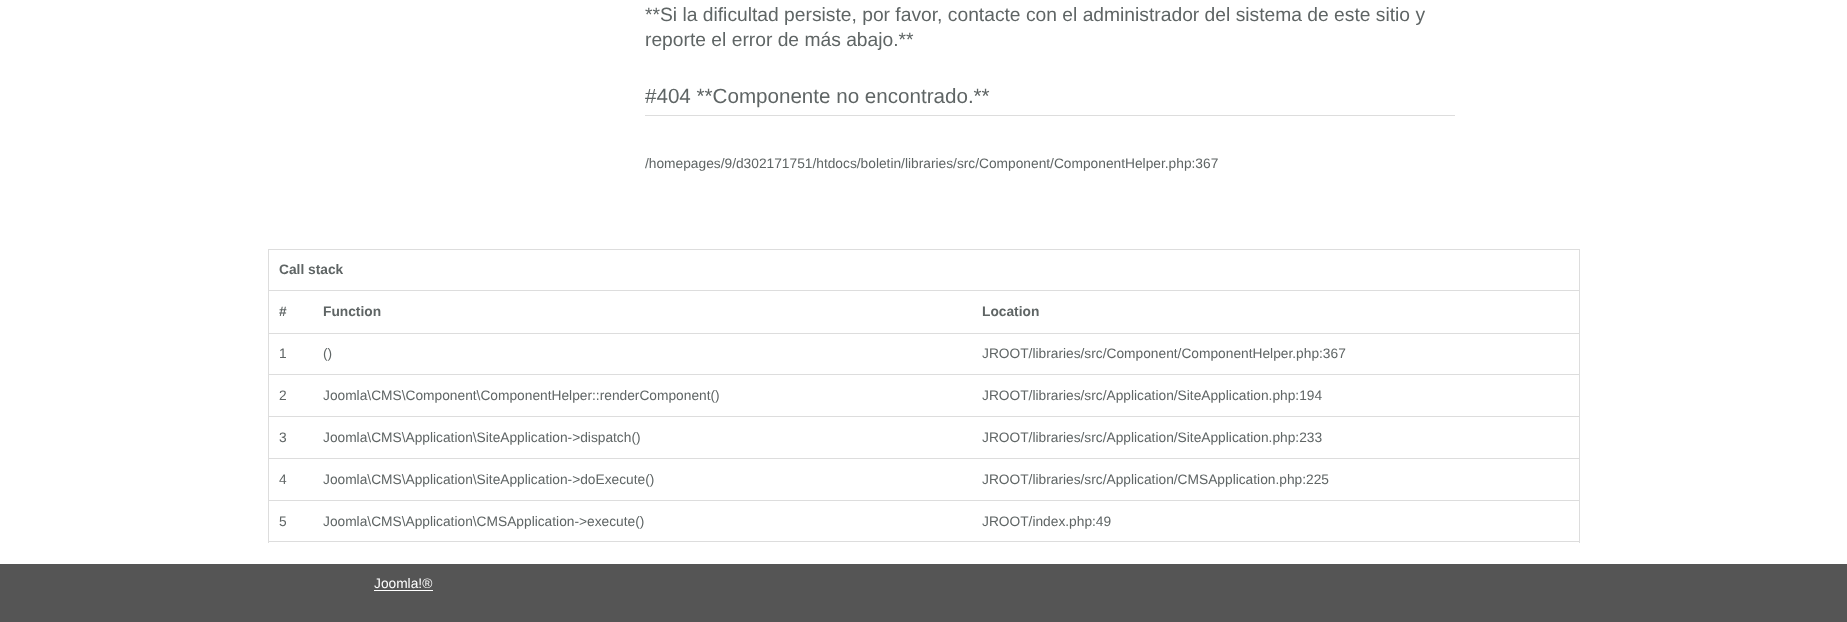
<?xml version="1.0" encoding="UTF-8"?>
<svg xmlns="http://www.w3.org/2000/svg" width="1847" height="622">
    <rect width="100%" height="100%" fill="#FFFFFF"/>
    <text font-family="Liberation Sans" font-size="19.25" fill="#5F6565">
        <tspan x="645" y="21">**Si la dificultad persiste, por favor, contacte con el administrador del sistema de este sitio y</tspan>
        <tspan x="645" y="46">reporte el error de más abajo.**</tspan>
    </text>
    <rect x="645" y="115" width="810" height="1" fill="#DDDDDD"/>
    <text x="645" y="103" font-family="Liberation Sans" font-size="20.6" fill="#5F6565">#404 **Componente no encontrado.**</text>
    <text x="645" y="168" font-family="Liberation Sans" font-size="13.75" fill="#5F6565">/homepages/9/d302171751/htdocs/boletin/libraries/src/Component/ComponentHelper.php:367</text>
    <rect x="268" y="249" width="1312" height="1" fill="#DDDDDD"/>
    <rect x="1579" y="249" width="1" height="294" fill="#DDDDDD"/>
    <rect x="268" y="541" width="1312" height="1" fill="#DDDDDD"/>
    <rect x="268" y="249" width="1" height="294" fill="#DDDDDD"/>
    <text x="279" y="274" font-family="Liberation Sans" font-size="13.75" font-weight="700" fill="#5F6565">Call stack</text>
    <text x="279" y="316" font-family="Liberation Sans" font-size="13.75" font-weight="700" fill="#5F6565">#</text>
    <text x="323" y="316" font-family="Liberation Sans" font-size="13.75" font-weight="700" fill="#5F6565">Function</text>
    <rect x="268" y="290" width="1312" height="1" fill="#DDDDDD"/>
    <text x="982" y="316" font-family="Liberation Sans" font-size="13.75" font-weight="700" fill="#5F6565">Location</text>
    <text x="279" y="358" font-family="Liberation Sans" font-size="13.75" fill="#5F6565">1</text>
    <text x="323" y="358" font-family="Liberation Sans" font-size="13.75" fill="#5F6565">()</text>
    <rect x="268" y="333" width="1312" height="1" fill="#DDDDDD"/>
    <text x="982" y="358" font-family="Liberation Sans" font-size="13.75" fill="#5F6565">JROOT/libraries/src/Component/ComponentHelper.php:367</text>
    <text x="279" y="400" font-family="Liberation Sans" font-size="13.75" fill="#5F6565">2</text>
    <text x="323" y="400" font-family="Liberation Sans" font-size="13.75" fill="#5F6565">Joomla\CMS\Component\ComponentHelper::renderComponent()</text>
    <rect x="268" y="374" width="1312" height="1" fill="#DDDDDD"/>
    <text x="982" y="400" font-family="Liberation Sans" font-size="13.75" fill="#5F6565">JROOT/libraries/src/Application/SiteApplication.php:194</text>
    <text x="279" y="442" font-family="Liberation Sans" font-size="13.75" fill="#5F6565">3</text>
    <text x="323" y="442" font-family="Liberation Sans" font-size="13.75" fill="#5F6565">Joomla\CMS\Application\SiteApplication-&gt;dispatch()</text>
    <rect x="268" y="416" width="1312" height="1" fill="#DDDDDD"/>
    <text x="982" y="442" font-family="Liberation Sans" font-size="13.75" fill="#5F6565">JROOT/libraries/src/Application/SiteApplication.php:233</text>
    <text x="279" y="484" font-family="Liberation Sans" font-size="13.75" fill="#5F6565">4</text>
    <text x="323" y="484" font-family="Liberation Sans" font-size="13.75" fill="#5F6565">Joomla\CMS\Application\SiteApplication-&gt;doExecute()</text>
    <rect x="268" y="458" width="1312" height="1" fill="#DDDDDD"/>
    <text x="982" y="484" font-family="Liberation Sans" font-size="13.75" fill="#5F6565">JROOT/libraries/src/Application/CMSApplication.php:225</text>
    <text x="279" y="526" font-family="Liberation Sans" font-size="13.75" fill="#5F6565">5</text>
    <text x="323" y="526" font-family="Liberation Sans" font-size="13.75" fill="#5F6565">Joomla\CMS\Application\CMSApplication-&gt;execute()</text>
    <rect x="268" y="500" width="1312" height="1" fill="#DDDDDD"/>
    <text x="982" y="526" font-family="Liberation Sans" font-size="13.75" fill="#5F6565">JROOT/index.php:49</text>
    <rect x="0" y="564" width="1847" height="58" fill="#555555"/>
    <text x="374" y="588" font-family="Liberation Sans" font-size="13.75" fill="#FFFFFF">Joomla!®</text>
    <rect x="374" y="590" width="59" height="1" fill="#FFFFFF"/>
</svg>
